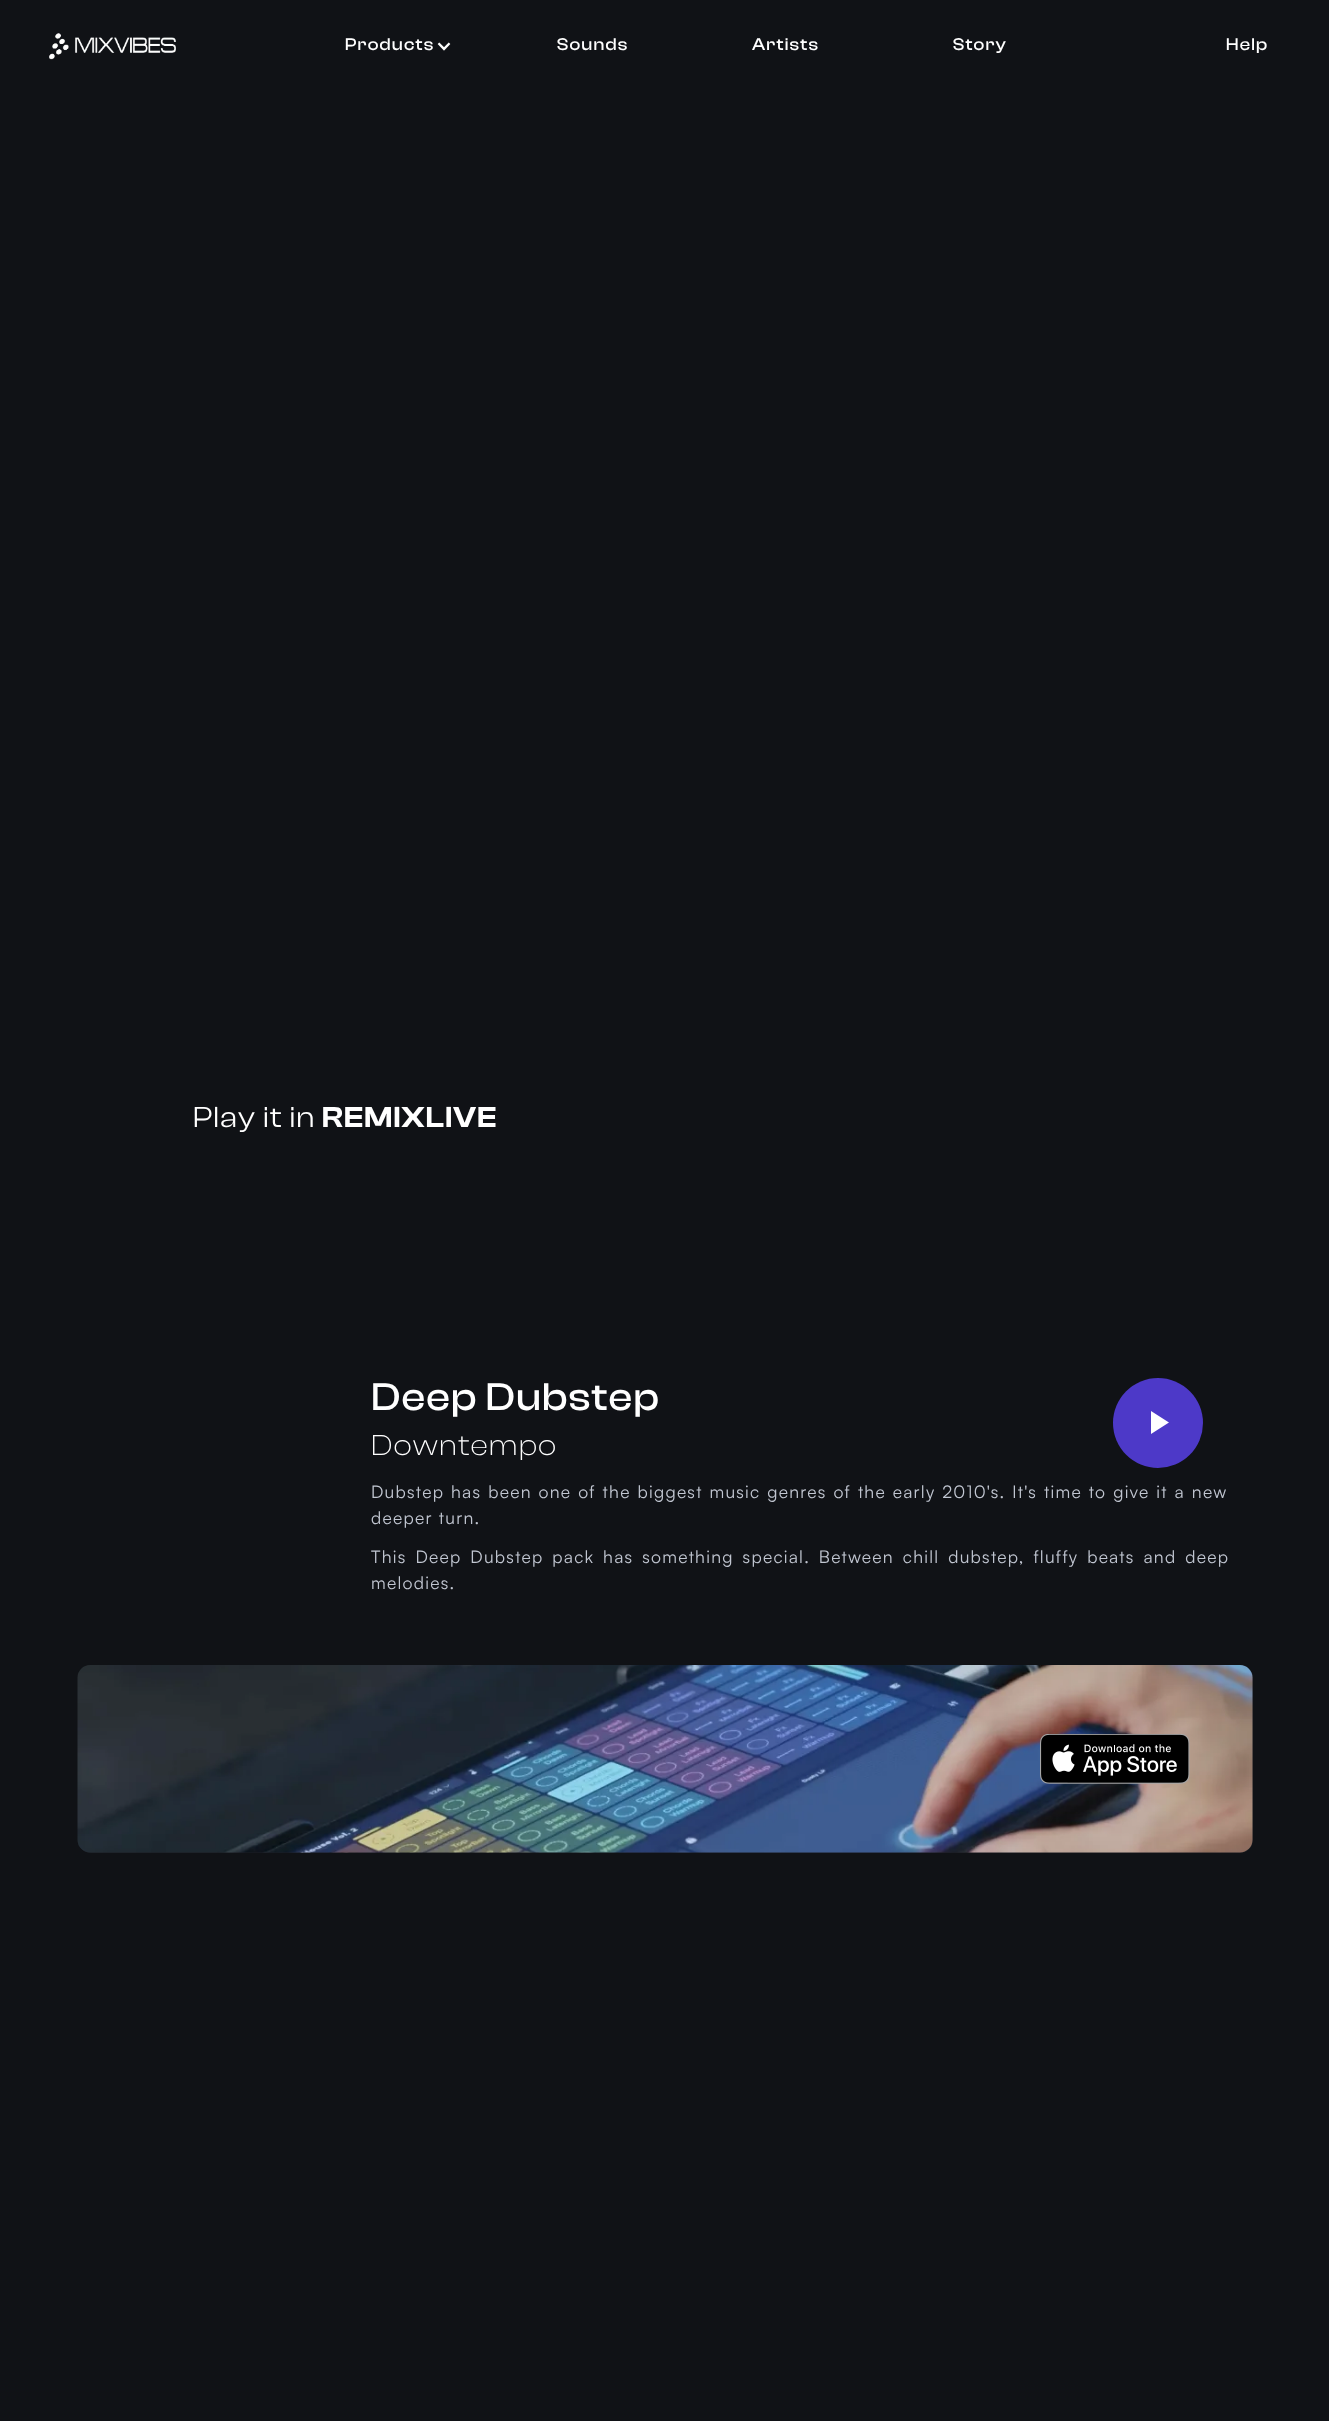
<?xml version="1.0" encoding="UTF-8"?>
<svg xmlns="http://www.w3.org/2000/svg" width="1329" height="2421">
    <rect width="100%" height="100%" fill="#101216"/>
    <image x="49" y="33" width="127" height="27" href="img_01.png"/>
    <text x="345" y="50" font-family="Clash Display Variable" font-size="17.5" font-weight="500" letter-spacing="1.25" fill="#FFFFFF">Products</text>
    <image x="437" y="42" width="14" height="9" href="img_02.png"/>
    <text x="557" y="50" font-family="Clash Display Variable" font-size="17.5" font-weight="500" letter-spacing="1.25" fill="#FFFFFF">Sounds</text>
    <text x="752" y="50" font-family="Clash Display Variable" font-size="17.5" font-weight="500" letter-spacing="1.25" fill="#FFFFFF">Artists</text>
    <text x="953" y="50" font-family="Clash Display Variable" font-size="17.5" font-weight="500" letter-spacing="1.25" fill="#FFFFFF">Story</text>
    <text x="1226" y="50" font-family="Clash Display Variable" font-size="17.5" font-weight="500" letter-spacing="1.25" fill="#FFFFFF">Help</text>
    <rect x="78" y="1665" width="1175" height="188" rx="13" fill="#1D1F24"/>
    <image x="77" y="1665" width="1176" height="188" href="img_03.png"/>
    <text x="193" y="1127" font-family="Clash Display Variable" font-size="30" letter-spacing="1.25" fill="#FFFFFF">Play it in</text>
    <text x="322" y="1127" font-family="Clash Display Variable" font-size="30" font-weight="600" letter-spacing="1.25" fill="#FFFFFF">REMIXLIVE</text>
    <image x="1040" y="1734" width="150" height="50" href="img_04.png"/>
    <text x="371" y="1410" font-family="Clash Display Variable" font-size="40" font-weight="500" letter-spacing="1.25" fill="#FFFFFF">Deep Dubstep</text>
    <circle cx="1158" cy="1423" r="45" fill="#4D39C8"/>
    <path d="M 1151 1411 V 1434 L 1169 1422.5 Z" fill="#FFFFFF"/>
    <text x="371" y="1455" font-family="Clash Display Variable" font-size="30" font-weight="300" letter-spacing="1.25" fill="#FFFFFF">Downtempo</text>
    <text font-family="Satoshi" font-size="17.5" letter-spacing="1.25" fill="#C1C6D1">
        <tspan x="371" y="1498" word-spacing="0.75">Dubstep has been one of the biggest music genres of the early 2010's. It's time to give it a new</tspan>
        <tspan x="371" y="1524">deeper turn.</tspan>
    </text>
    <text font-family="Satoshi" font-size="17.5" letter-spacing="1.25" fill="#C1C6D1">
        <tspan x="371" y="1563" word-spacing="2.75">This Deep Dubstep pack has something special. Between chill dubstep, fluffy beats and deep</tspan>
        <tspan x="371" y="1589">melodies.</tspan>
    </text>
</svg>
